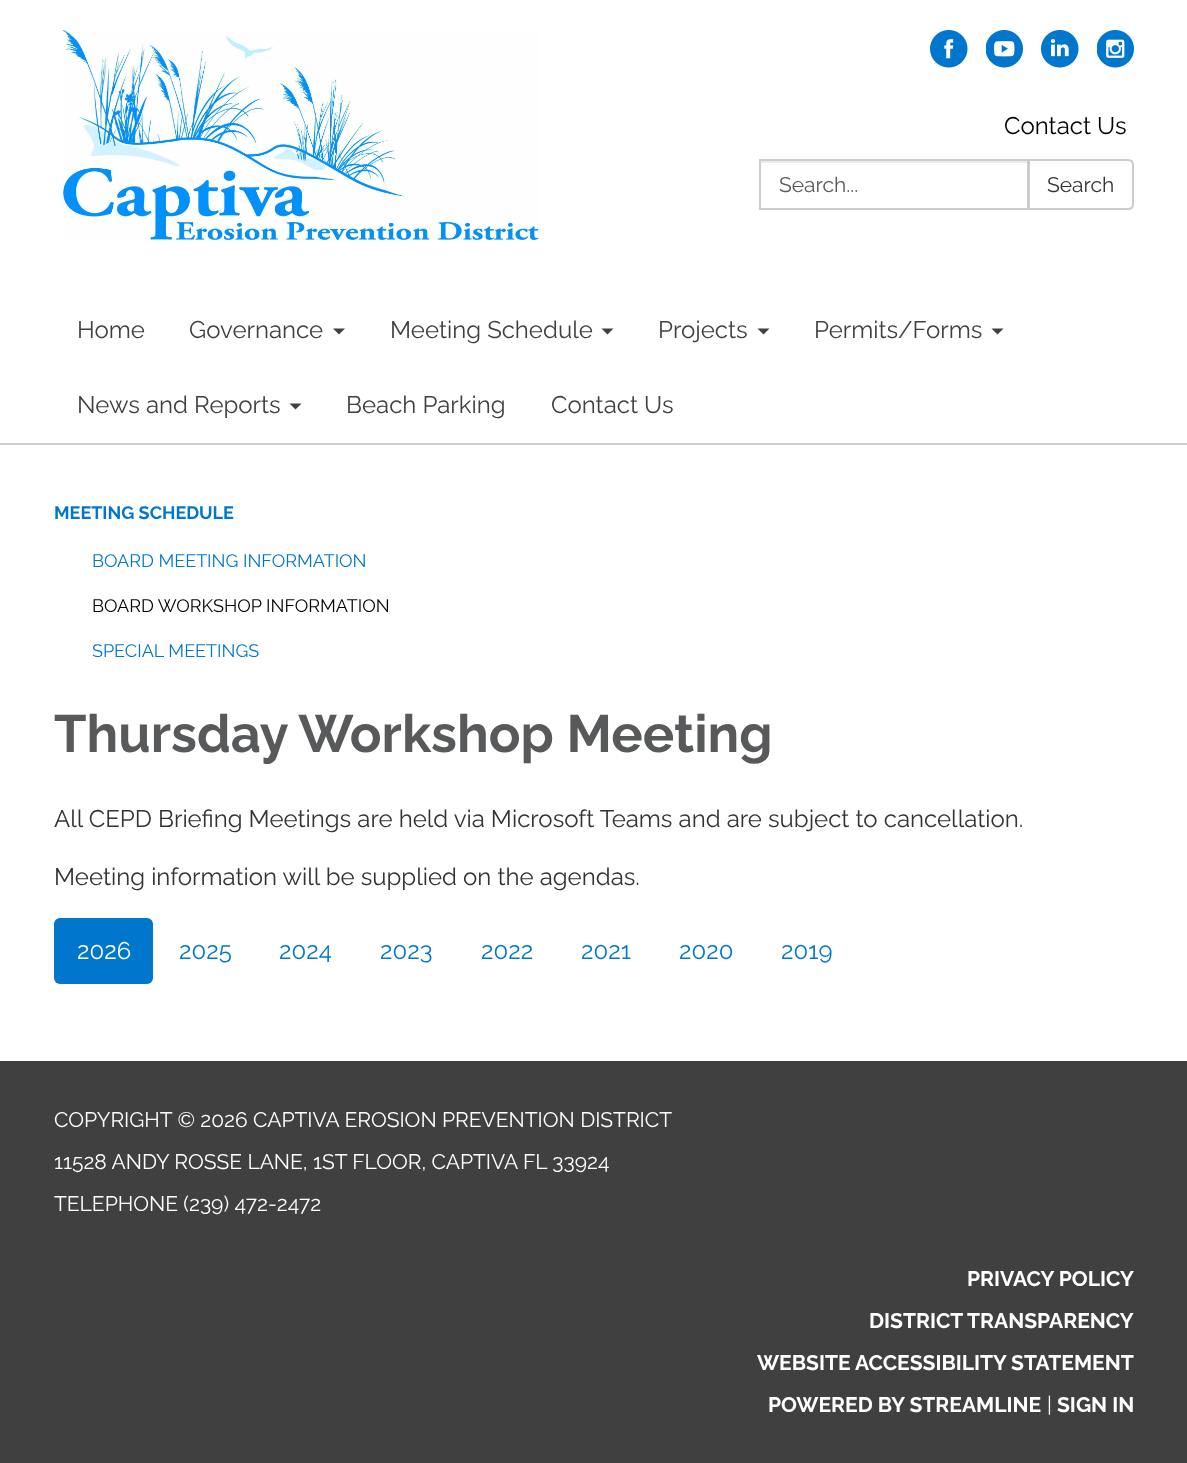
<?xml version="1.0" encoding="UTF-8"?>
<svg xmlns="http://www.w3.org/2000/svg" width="1187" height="1463">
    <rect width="100%" height="100%" fill="#404041"/>
    <rect x="0" y="0" width="1187" height="443" fill="#FFFFFF"/>
    <image x="62" y="30" width="477" height="212" href="img_01.png"/>
    <image x="930" y="30" width="38" height="38" href="img_02.png"/>
    <image x="986" y="30" width="37" height="38" href="img_03.png"/>
    <image x="1041" y="30" width="38" height="38" href="img_04.png"/>
    <image x="1097" y="30" width="37" height="38" href="img_05.png"/>
    <text x="1004" y="134" font-family="Raleway" font-size="24" fill="#000000">Contact Us</text>
    <rect x="761" y="161" width="267" height="2" fill="#ECECEC"/>
    <rect x="760" y="160" width="268" height="49" fill="none" stroke="#CCCCCC" stroke-width="2"/>
    <text x="779" y="192" font-family="Raleway" font-size="21" fill="#58595B">Search...</text>
    <path d="M 1029 160 H 1128 C 1131 160 1133 162 1133 165 V 204 C 1133 207 1131 209 1128 209 H 1029 Z" fill="#FFFFFF" stroke="#CCCCCC" stroke-width="2"/>
    <text x="1047" y="192" font-family="Raleway" font-size="21" fill="#333333">Search</text>
    <text x="77" y="338" font-family="Raleway" font-size="24" fill="#404041">Home</text>
    <text x="189" y="338" font-family="Raleway" font-size="24" fill="#404041">Governance</text>
    <path d="M 333 328.5 H 345 L 339 334.5 Z" fill="#404041"/>
    <text x="390" y="338" font-family="Raleway" font-size="24" fill="#404041">Meeting Schedule</text>
    <path d="M 601.5 328.5 H 613.5 L 607.5 334.5 Z" fill="#404041"/>
    <text x="658" y="338" font-family="Raleway" font-size="24" fill="#404041">Projects</text>
    <path d="M 757.5 328.5 H 769.5 L 763.5 334.5 Z" fill="#404041"/>
    <text x="814" y="338" font-family="Raleway" font-size="24" fill="#404041">Permits/Forms</text>
    <path d="M 991.5 328.5 H 1003.5 L 997.5 334.5 Z" fill="#404041"/>
    <text x="77" y="413" font-family="Raleway" font-size="24" fill="#404041">News and Reports</text>
    <path d="M 289.5 403.5 H 301.5 L 295.5 409.5 Z" fill="#404041"/>
    <text x="346" y="413" font-family="Raleway" font-size="24" fill="#404041">Beach Parking</text>
    <text x="551" y="413" font-family="Raleway" font-size="24" fill="#404041">Contact Us</text>
    <rect x="0" y="445" width="1187" height="616" fill="#FFFFFF"/>
    <rect x="0" y="443" width="1187" height="2" fill="#CCCCCC"/>
    <text x="54" y="519" font-family="Raleway" font-size="18" font-weight="700" fill="#0077CC">MEETING SCHEDULE</text>
    <text x="92" y="567" font-family="Raleway" font-size="18" fill="#0077CC">BOARD MEETING INFORMATION</text>
    <text x="92" y="612" font-family="Raleway" font-size="18" fill="#000000">BOARD WORKSHOP INFORMATION</text>
    <text x="92" y="657" font-family="Raleway" font-size="18" fill="#0077CC">SPECIAL MEETINGS</text>
    <text x="54" y="752" font-family="Raleway" font-size="52.5" font-weight="700" fill="#58595B">Thursday Workshop Meeting</text>
    <text x="54" y="827" font-family="Raleway" font-size="24" fill="#333333">All CEPD Briefing Meetings are held via Microsoft Teams and are subject to cancellation.</text>
    <text x="54" y="885" font-family="Raleway" font-size="24" fill="#333333">Meeting information will be supplied on the agendas.</text>
    <rect x="54" y="918" width="99" height="66" rx="6" fill="#0077CC"/>
    <text x="77" y="959" font-family="Raleway" font-size="24" fill="#FFFFFF">2026</text>
    <text x="179" y="959" font-family="Raleway" font-size="24" fill="#0077CC">2025</text>
    <text x="279" y="959" font-family="Raleway" font-size="24" fill="#0077CC">2024</text>
    <text x="380" y="959" font-family="Raleway" font-size="24" fill="#0077CC">2023</text>
    <text x="481" y="959" font-family="Raleway" font-size="24" fill="#0077CC">2022</text>
    <text x="581" y="959" font-family="Raleway" font-size="24" fill="#0077CC">2021</text>
    <text x="679" y="959" font-family="Raleway" font-size="24" fill="#0077CC">2020</text>
    <text x="781" y="959" font-family="Raleway" font-size="24" fill="#0077CC">2019</text>
    <text x="54" y="1127" font-family="Raleway" font-size="21" fill="#FFFFFF">COPYRIGHT © 2026 CAPTIVA EROSION PREVENTION DISTRICT</text>
    <text x="54" y="1169" font-family="Raleway" font-size="21" fill="#FFFFFF">11528 ANDY ROSSE LANE, 1ST FLOOR, CAPTIVA FL 33924</text>
    <text x="54" y="1211" font-family="Raleway" font-size="21" fill="#FFFFFF">TELEPHONE (239) 472-2472</text>
    <text x="967" y="1286" font-family="Raleway" font-size="21" font-weight="700" fill="#FFFFFF">PRIVACY POLICY</text>
    <text x="869" y="1328" font-family="Raleway" font-size="21" font-weight="700" fill="#FFFFFF">DISTRICT TRANSPARENCY</text>
    <text x="757" y="1370" font-family="Raleway" font-size="21" font-weight="700" fill="#FFFFFF">WEBSITE ACCESSIBILITY STATEMENT</text>
    <text x="768" y="1412" font-family="Raleway" font-size="21" font-weight="700" fill="#FFFFFF">POWERED BY STREAMLINE</text>
    <text x="1047" y="1412" font-family="Raleway" font-size="21" fill="#FFFFFF">|</text>
    <text x="1057" y="1412" font-family="Raleway" font-size="21" font-weight="700" fill="#FFFFFF">SIGN IN</text>
</svg>
